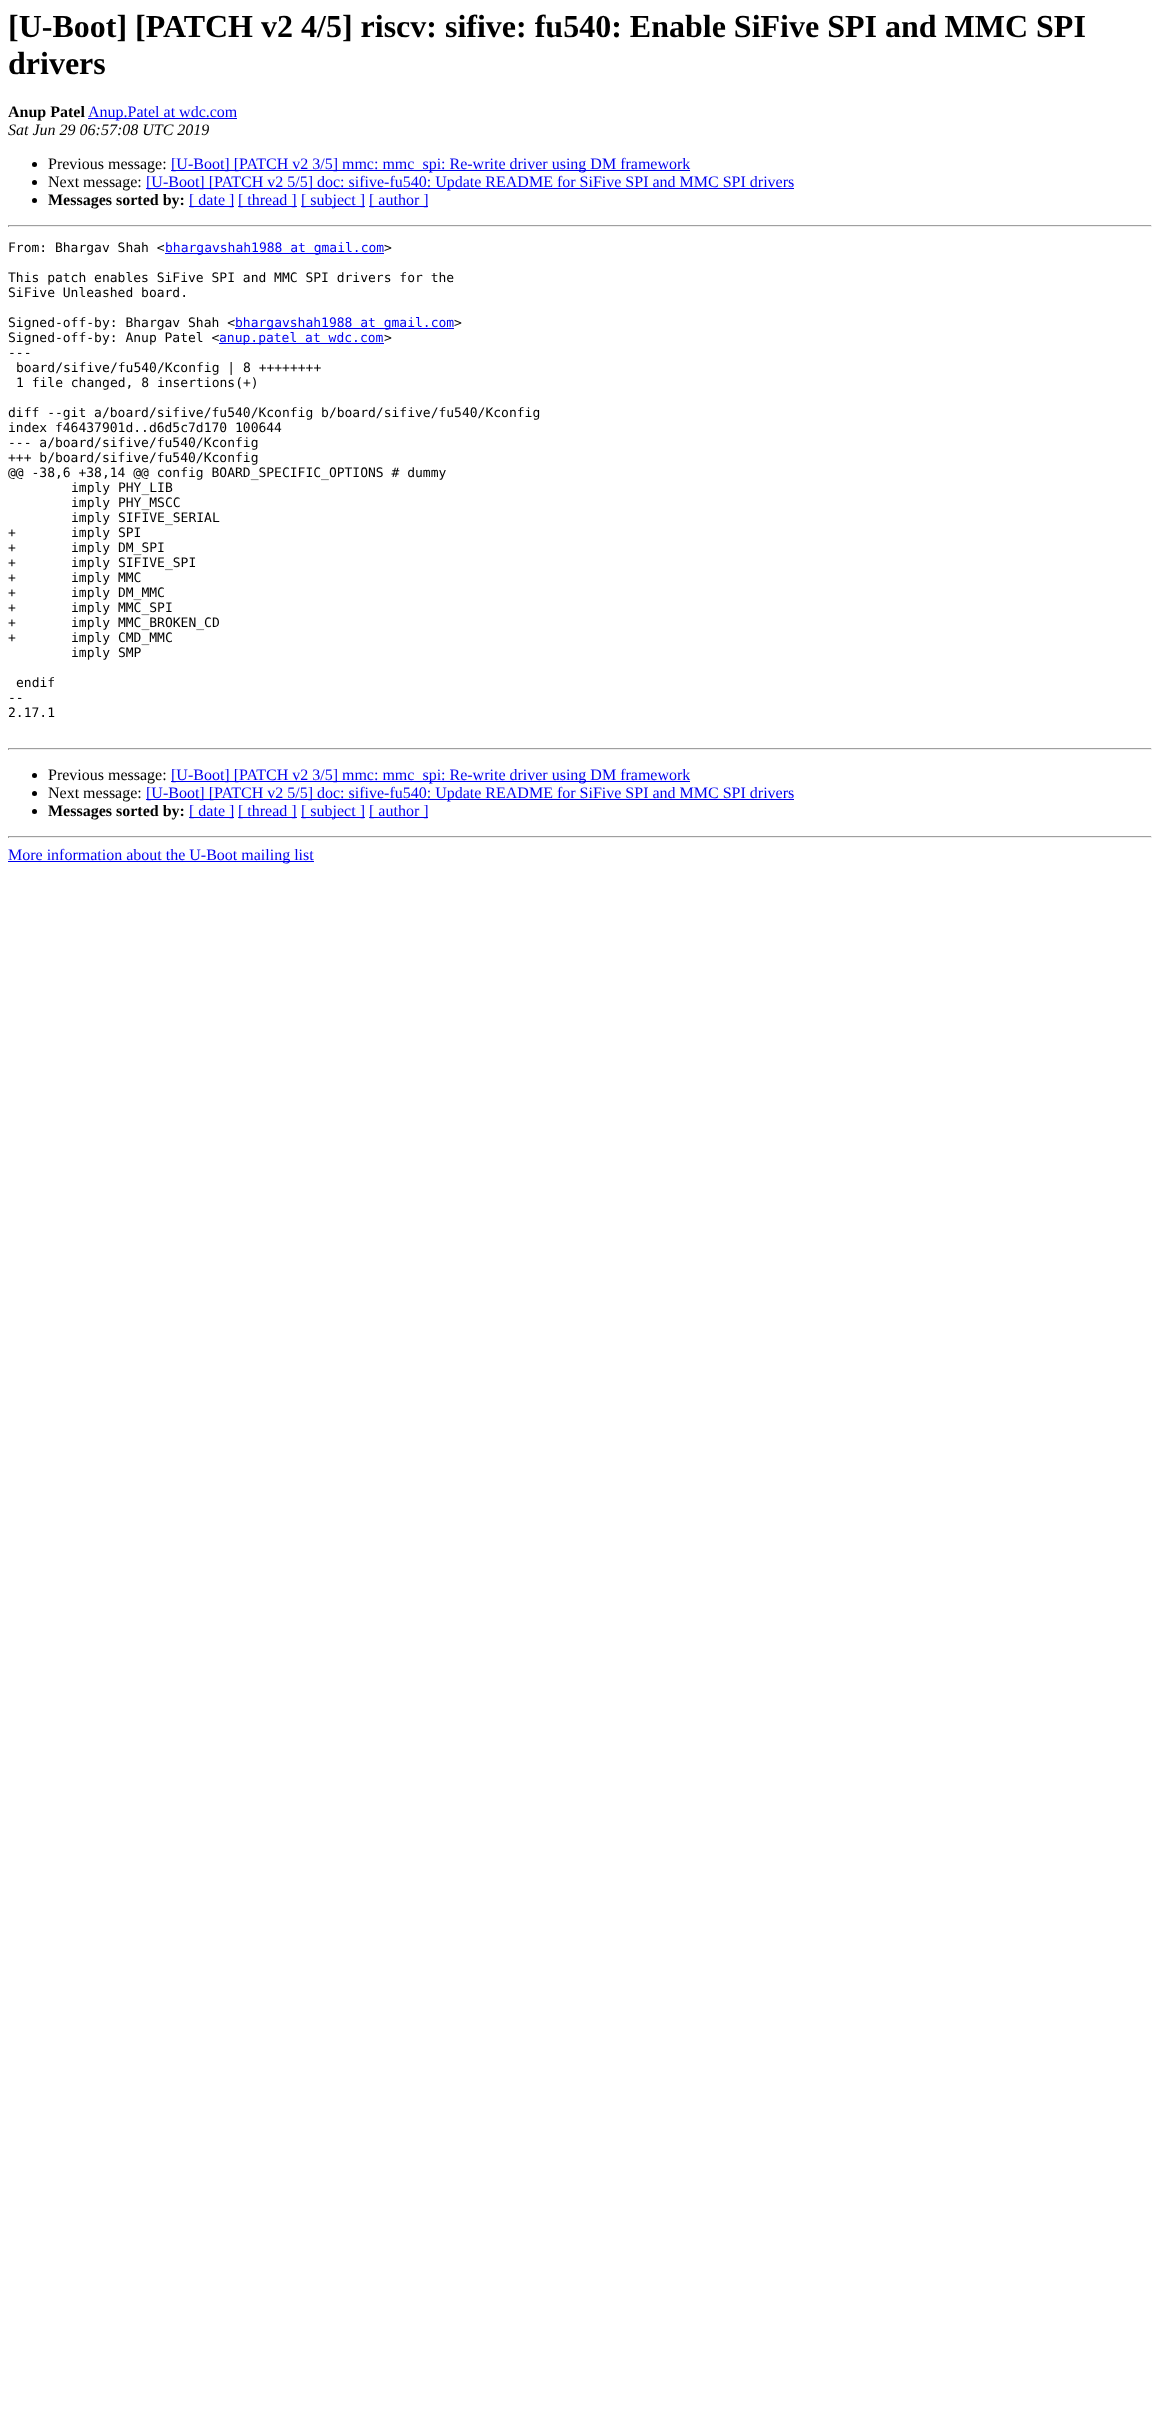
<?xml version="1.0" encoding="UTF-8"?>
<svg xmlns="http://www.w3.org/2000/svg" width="1160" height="2412">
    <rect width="100%" height="100%" fill="#FFFFFF"/>
    <text font-family="Liberation Serif" font-size="32" font-weight="700" fill="#000000">
        <tspan x="8" y="37">[U-Boot] [PATCH v2 4/5] riscv: sifive: fu540: Enable SiFive SPI and MMC SPI</tspan>
        <tspan x="8" y="74">drivers</tspan>
    </text>
    <text x="8" y="117" font-family="Liberation Serif" font-size="16" font-weight="700" fill="#000000">Anup Patel</text>
    <rect x="88" y="118" width="149" height="1" fill="#0000EE"/>
    <text x="88" y="117" font-family="Liberation Serif" font-size="16" fill="#0000EE">Anup.Patel at wdc.com</text>
    <text x="8" y="135" font-family="Liberation Serif" font-size="16" font-style="italic" fill="#000000">Sat Jun 29 06:57:08 UTC 2019</text>
    <circle cx="34.5" cy="164.5" r="2.5" fill="#000000"/>
    <text x="48" y="169" font-family="Liberation Serif" font-size="16" fill="#000000">Previous message:</text>
    <rect x="171" y="170" width="519" height="1" fill="#0000EE"/>
    <text x="171" y="169" font-family="Liberation Serif" font-size="16" fill="#0000EE">[U-Boot] [PATCH v2 3/5] mmc: mmc_spi: Re-write driver using DM framework</text>
    <circle cx="34.5" cy="182.5" r="2.5" fill="#000000"/>
    <text x="48" y="187" font-family="Liberation Serif" font-size="16" fill="#000000">Next message:</text>
    <rect x="146" y="188" width="648" height="1" fill="#0000EE"/>
    <text x="146" y="187" font-family="Liberation Serif" font-size="16" fill="#0000EE">[U-Boot] [PATCH v2 5/5] doc: sifive-fu540: Update README for SiFive SPI and MMC SPI drivers</text>
    <circle cx="34.5" cy="200.5" r="2.5" fill="#000000"/>
    <text x="48" y="205" font-family="Liberation Serif" font-size="16" font-weight="700" fill="#000000">Messages sorted by:</text>
    <rect x="189" y="206" width="45" height="1" fill="#0000EE"/>
    <text x="189" y="205" font-family="Liberation Serif" font-size="16" fill="#0000EE">[ date ]</text>
    <rect x="238" y="206" width="59" height="1" fill="#0000EE"/>
    <text x="238" y="205" font-family="Liberation Serif" font-size="16" fill="#0000EE">[ thread ]</text>
    <rect x="301" y="206" width="64" height="1" fill="#0000EE"/>
    <text x="301" y="205" font-family="Liberation Serif" font-size="16" fill="#0000EE">[ subject ]</text>
    <rect x="369" y="206" width="59" height="1" fill="#0000EE"/>
    <text x="369" y="205" font-family="Liberation Serif" font-size="16" fill="#0000EE">[ author ]</text>
    <rect x="8" y="225" width="1144" height="1" fill="#9F9F9F"/>
    <rect x="1151" y="225" width="1" height="2" fill="#EEEEEE"/>
    <rect x="8" y="226" width="1144" height="1" fill="#EEEEEE"/>
    <rect x="8" y="225" width="1" height="2" fill="#9F9F9F"/>
    <text x="8" y="252" font-family="DejaVu Sans Mono" font-size="13" fill="#000000">From: Bhargav Shah &lt;</text>
    <rect x="165" y="253" width="219" height="1" fill="#0000EE"/>
    <text x="165" y="252" font-family="DejaVu Sans Mono" font-size="13" fill="#0000EE">bhargavshah1988 at gmail.com</text>
    <text x="384" y="252" font-family="DejaVu Sans Mono" font-size="13" fill="#000000">&gt;</text>
    <text font-family="DejaVu Sans Mono" font-size="13" fill="#000000">
        <tspan x="8" y="282">This patch enables SiFive SPI and MMC SPI drivers for the</tspan>
        <tspan x="8" y="297">SiFive Unleashed board.</tspan>
    </text>
    <text x="8" y="327" font-family="DejaVu Sans Mono" font-size="13" fill="#000000">Signed-off-by: Bhargav Shah &lt;</text>
    <rect x="235" y="328" width="219" height="1" fill="#0000EE"/>
    <text x="235" y="327" font-family="DejaVu Sans Mono" font-size="13" fill="#0000EE">bhargavshah1988 at gmail.com</text>
    <text x="454" y="327" font-family="DejaVu Sans Mono" font-size="13" fill="#000000">&gt;</text>
    <text x="8" y="342" font-family="DejaVu Sans Mono" font-size="13" fill="#000000">Signed-off-by: Anup Patel &lt;</text>
    <rect x="219" y="343" width="165" height="1" fill="#0000EE"/>
    <text x="219" y="342" font-family="DejaVu Sans Mono" font-size="13" fill="#0000EE">anup.patel at wdc.com</text>
    <text x="384" y="342" font-family="DejaVu Sans Mono" font-size="13" fill="#000000">&gt;</text>
    <text x="8" y="357" font-family="DejaVu Sans Mono" font-size="13" fill="#000000">---</text>
    <text font-family="DejaVu Sans Mono" font-size="13" fill="#000000">
        <tspan x="16" y="372">board/sifive/fu540/Kconfig | 8 ++++++++</tspan>
        <tspan x="16" y="387">1 file changed, 8 insertions(+)</tspan>
    </text>
    <text font-family="DejaVu Sans Mono" font-size="13" fill="#000000">
        <tspan x="8" y="417">diff --git a/board/sifive/fu540/Kconfig b/board/sifive/fu540/Kconfig</tspan>
        <tspan x="8" y="432">index f46437901d..d6d5c7d170 100644</tspan>
        <tspan x="8" y="447">--- a/board/sifive/fu540/Kconfig</tspan>
        <tspan x="8" y="462">+++ b/board/sifive/fu540/Kconfig</tspan>
        <tspan x="8" y="477">@@ -38,6 +38,14 @@ config BOARD_SPECIFIC_OPTIONS # dummy</tspan>
    </text>
    <text font-family="DejaVu Sans Mono" font-size="13" fill="#000000">
        <tspan x="71" y="492">imply PHY_LIB</tspan>
        <tspan x="71" y="507">imply PHY_MSCC</tspan>
        <tspan x="71" y="522">imply SIFIVE_SERIAL</tspan>
    </text>
    <text x="8" y="537" font-family="DejaVu Sans Mono" font-size="13" fill="#000000">+</text>
    <text x="71" y="537" font-family="DejaVu Sans Mono" font-size="13" fill="#000000">imply SPI</text>
    <text x="8" y="552" font-family="DejaVu Sans Mono" font-size="13" fill="#000000">+</text>
    <text x="71" y="552" font-family="DejaVu Sans Mono" font-size="13" fill="#000000">imply DM_SPI</text>
    <text x="8" y="567" font-family="DejaVu Sans Mono" font-size="13" fill="#000000">+</text>
    <text x="71" y="567" font-family="DejaVu Sans Mono" font-size="13" fill="#000000">imply SIFIVE_SPI</text>
    <text x="8" y="582" font-family="DejaVu Sans Mono" font-size="13" fill="#000000">+</text>
    <text x="71" y="582" font-family="DejaVu Sans Mono" font-size="13" fill="#000000">imply MMC</text>
    <text x="8" y="597" font-family="DejaVu Sans Mono" font-size="13" fill="#000000">+</text>
    <text x="71" y="597" font-family="DejaVu Sans Mono" font-size="13" fill="#000000">imply DM_MMC</text>
    <text x="8" y="612" font-family="DejaVu Sans Mono" font-size="13" fill="#000000">+</text>
    <text x="71" y="612" font-family="DejaVu Sans Mono" font-size="13" fill="#000000">imply MMC_SPI</text>
    <text x="8" y="627" font-family="DejaVu Sans Mono" font-size="13" fill="#000000">+</text>
    <text x="71" y="627" font-family="DejaVu Sans Mono" font-size="13" fill="#000000">imply MMC_BROKEN_CD</text>
    <text x="8" y="642" font-family="DejaVu Sans Mono" font-size="13" fill="#000000">+</text>
    <text font-family="DejaVu Sans Mono" font-size="13" fill="#000000">
        <tspan x="71" y="642">imply CMD_MMC</tspan>
        <tspan x="71" y="657">imply SMP</tspan>
    </text>
    <text x="16" y="687" font-family="DejaVu Sans Mono" font-size="13" fill="#000000">endif</text>
    <text font-family="DejaVu Sans Mono" font-size="13" fill="#000000">
        <tspan x="8" y="702">--</tspan>
        <tspan x="8" y="717">2.17.1</tspan>
    </text>
    <rect x="8" y="748" width="1144" height="1" fill="#9F9F9F"/>
    <rect x="1151" y="748" width="1" height="2" fill="#EEEEEE"/>
    <rect x="8" y="749" width="1144" height="1" fill="#EEEEEE"/>
    <rect x="8" y="748" width="1" height="2" fill="#9F9F9F"/>
    <circle cx="34.5" cy="775.5" r="2.5" fill="#000000"/>
    <text x="48" y="780" font-family="Liberation Serif" font-size="16" fill="#000000">Previous message:</text>
    <rect x="171" y="781" width="519" height="1" fill="#0000EE"/>
    <text x="171" y="780" font-family="Liberation Serif" font-size="16" fill="#0000EE">[U-Boot] [PATCH v2 3/5] mmc: mmc_spi: Re-write driver using DM framework</text>
    <circle cx="34.5" cy="793.5" r="2.5" fill="#000000"/>
    <text x="48" y="798" font-family="Liberation Serif" font-size="16" fill="#000000">Next message:</text>
    <rect x="146" y="799" width="648" height="1" fill="#0000EE"/>
    <text x="146" y="798" font-family="Liberation Serif" font-size="16" fill="#0000EE">[U-Boot] [PATCH v2 5/5] doc: sifive-fu540: Update README for SiFive SPI and MMC SPI drivers</text>
    <circle cx="34.5" cy="811.5" r="2.5" fill="#000000"/>
    <text x="48" y="816" font-family="Liberation Serif" font-size="16" font-weight="700" fill="#000000">Messages sorted by:</text>
    <rect x="189" y="817" width="45" height="1" fill="#0000EE"/>
    <text x="189" y="816" font-family="Liberation Serif" font-size="16" fill="#0000EE">[ date ]</text>
    <rect x="238" y="817" width="59" height="1" fill="#0000EE"/>
    <text x="238" y="816" font-family="Liberation Serif" font-size="16" fill="#0000EE">[ thread ]</text>
    <rect x="301" y="817" width="64" height="1" fill="#0000EE"/>
    <text x="301" y="816" font-family="Liberation Serif" font-size="16" fill="#0000EE">[ subject ]</text>
    <rect x="369" y="817" width="59" height="1" fill="#0000EE"/>
    <text x="369" y="816" font-family="Liberation Serif" font-size="16" fill="#0000EE">[ author ]</text>
    <rect x="8" y="836" width="1144" height="1" fill="#9F9F9F"/>
    <rect x="1151" y="836" width="1" height="2" fill="#EEEEEE"/>
    <rect x="8" y="837" width="1144" height="1" fill="#EEEEEE"/>
    <rect x="8" y="836" width="1" height="2" fill="#9F9F9F"/>
    <rect x="8" y="861" width="306" height="1" fill="#0000EE"/>
    <text x="8" y="860" font-family="Liberation Serif" font-size="16" fill="#0000EE">More information about the U-Boot mailing list</text>
</svg>
